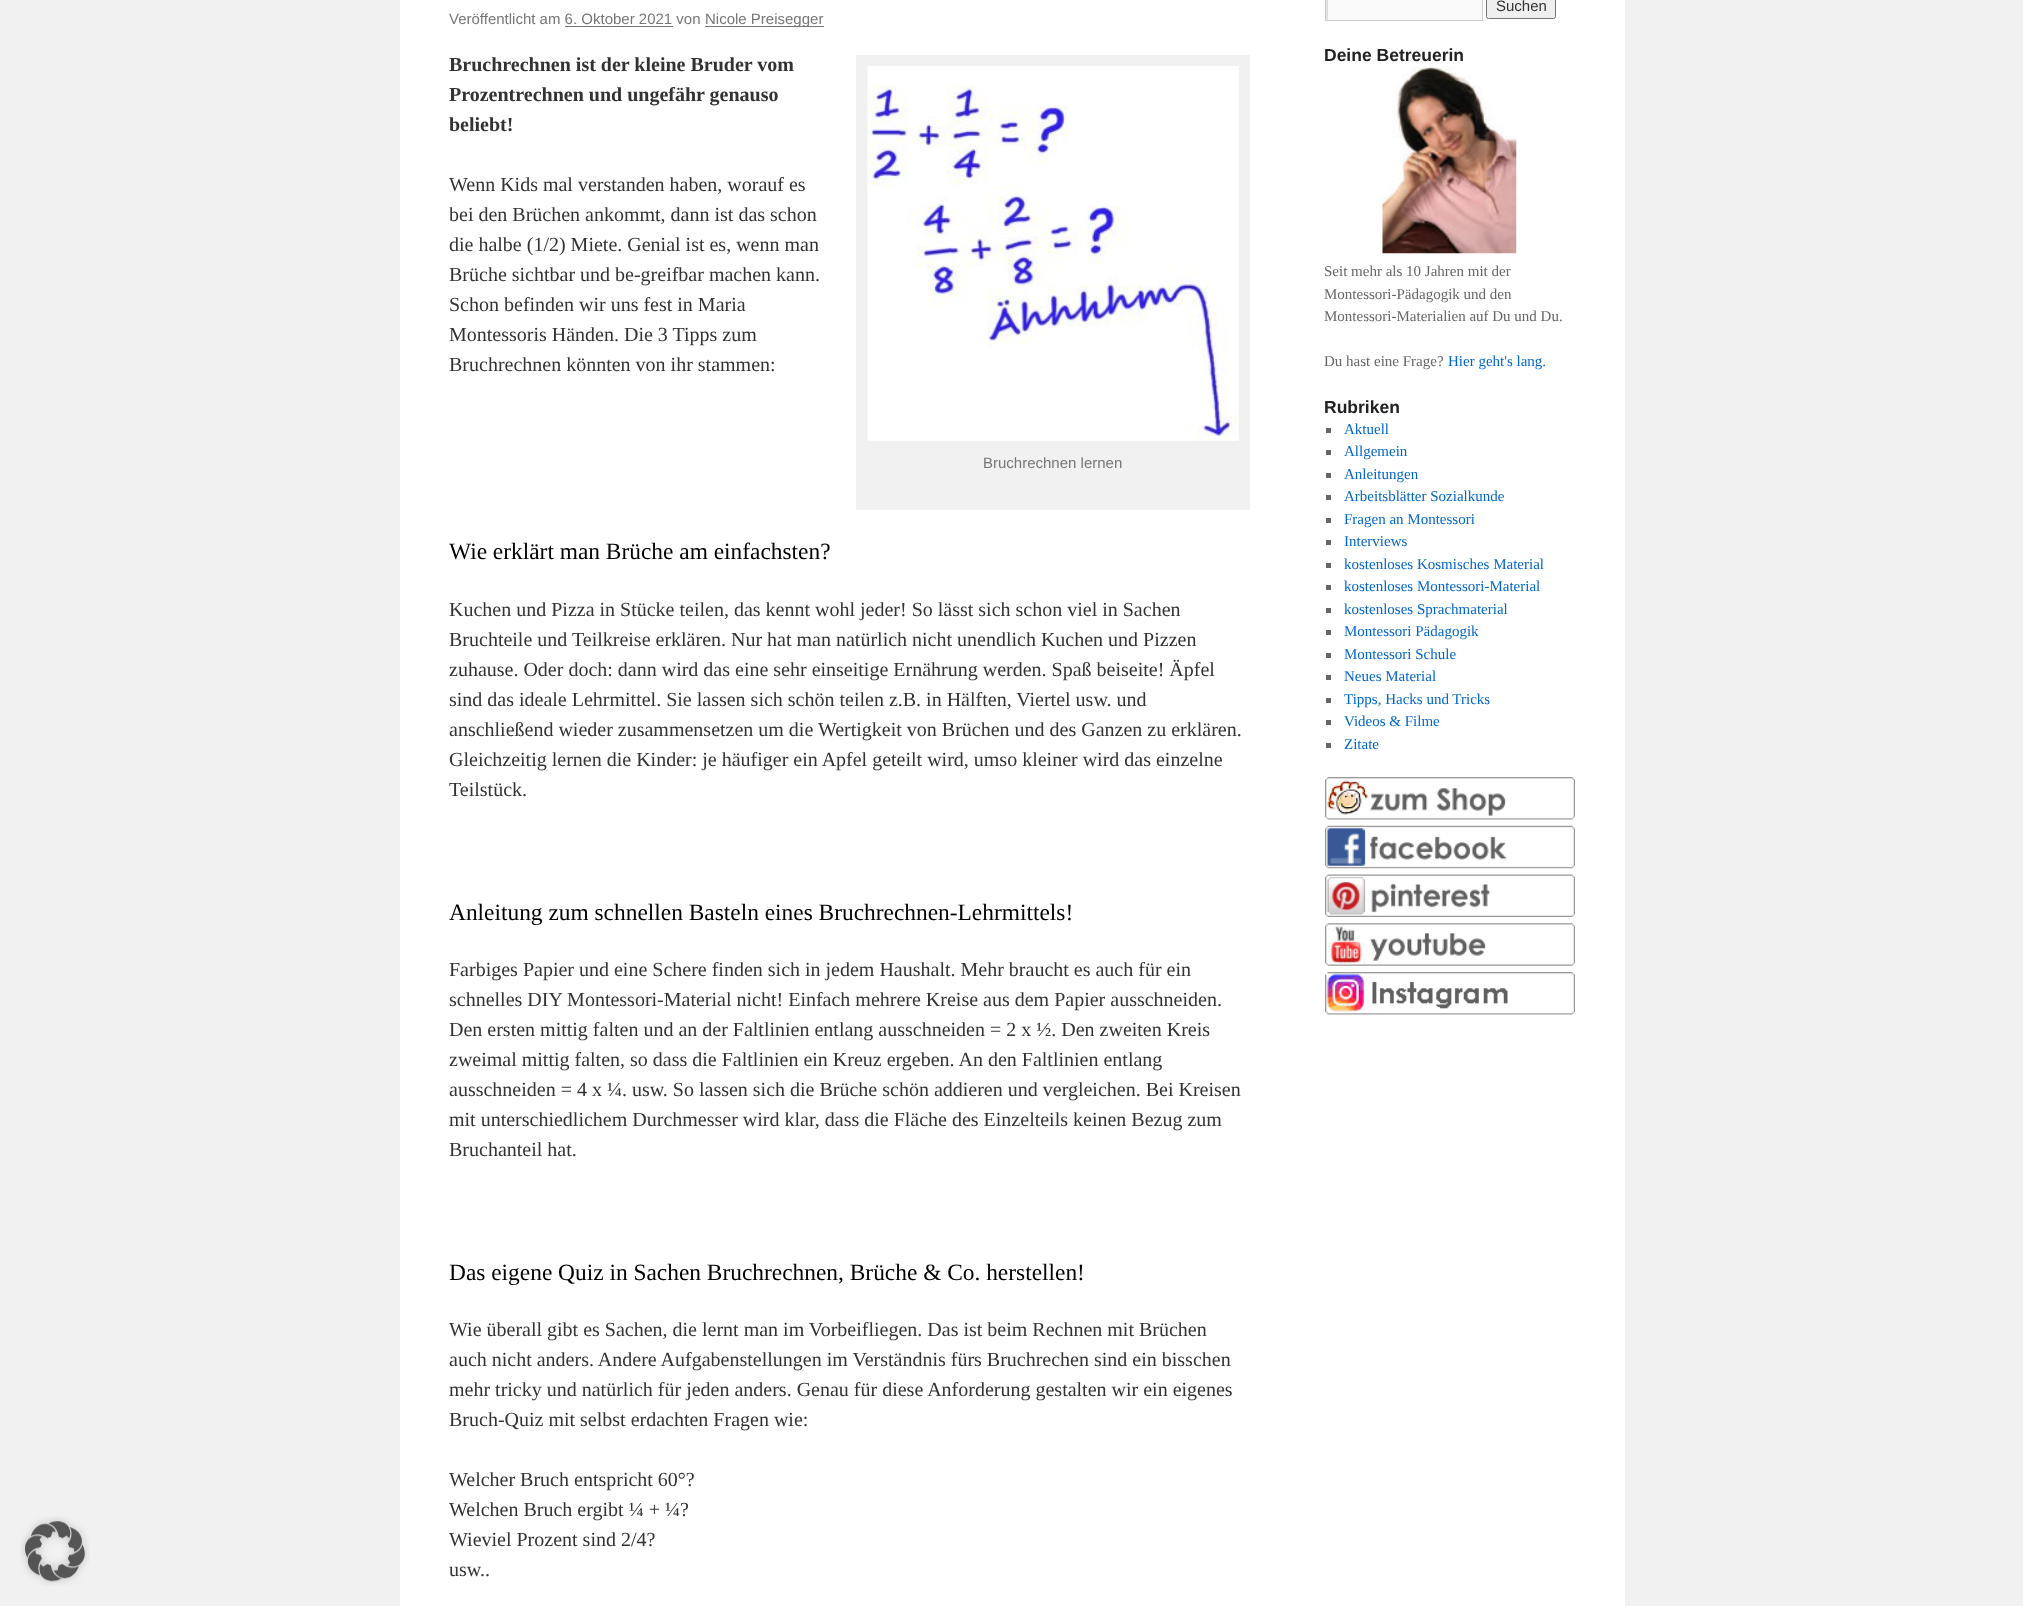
<?xml version="1.0" encoding="UTF-8"?>
<svg xmlns="http://www.w3.org/2000/svg" width="2023" height="1606">
    <defs>
        <clipPath id="clip1"><rect x="1326" y="0" width="155" height="20"/></clipPath>
    </defs>
    <rect width="100%" height="100%" fill="#F1F1F1"/>
    <image x="20" y="1516" width="70" height="70" href="img_01.png"/>
    <rect x="400" y="0" width="1225" height="1606" fill="#FFFFFF"/>
    <text x="449" y="24" font-family="Liberation Sans" font-size="15" fill="#777777">Veröffentlicht am 6. Oktober 2021 von</text>
    <rect x="705" y="26" width="119" height="1" fill="#777777"/>
    <text x="705" y="24" font-family="Liberation Sans" font-size="15" fill="#777777">Nicole Preisegger</text>
    <rect x="565" y="26" width="108" height="1" fill="#777777"/>
    <text font-family="Liberation Serif" font-size="20" font-weight="700" fill="#333333">
        <tspan x="449" y="71">Bruchrechnen ist der kleine Bruder vom</tspan>
        <tspan x="449" y="101">Prozentrechnen und ungefähr genauso</tspan>
        <tspan x="449" y="131">beliebt!</tspan>
    </text>
    <text font-family="Liberation Serif" font-size="20" fill="#333333">
        <tspan x="449" y="191">Wenn Kids mal verstanden haben, worauf es</tspan>
        <tspan x="449" y="221">bei den Brüchen ankommt, dann ist das schon</tspan>
        <tspan x="449" y="251">die halbe (1/2) Miete. Genial ist es, wenn man</tspan>
        <tspan x="449" y="281">Brüche sichtbar und be-greifbar machen kann.</tspan>
        <tspan x="449" y="311">Schon befinden wir uns fest in Maria</tspan>
        <tspan x="449" y="341">Montessoris Händen. Die 3 Tipps zum</tspan>
        <tspan x="449" y="371">Bruchrechnen könnten von ihr stammen:</tspan>
    </text>
    <rect x="856" y="55" width="394" height="455" fill="#F1F1F1"/>
    <image x="867" y="66" width="372" height="375" href="img_02.png"/>
    <text x="983" y="468" font-family="Liberation Sans" font-size="15" fill="#777777">Bruchrechnen lernen</text>
    <text x="449" y="559" font-family="Liberation Serif" font-size="23.4" fill="#000000">Wie erklärt man Brüche am einfachsten?</text>
    <text font-family="Liberation Serif" font-size="20" fill="#333333">
        <tspan x="449" y="616">Kuchen und Pizza in Stücke teilen, das kennt wohl jeder! So lässt sich schon viel in Sachen</tspan>
        <tspan x="449" y="646">Bruchteile und Teilkreise erklären. Nur hat man natürlich nicht unendlich Kuchen und Pizzen</tspan>
        <tspan x="449" y="676">zuhause. Oder doch: dann wird das eine sehr einseitige Ernährung werden. Spaß beiseite! Äpfel</tspan>
        <tspan x="449" y="706">sind das ideale Lehrmittel. Sie lassen sich schön teilen z.B. in Hälften, Viertel usw. und</tspan>
        <tspan x="449" y="736">anschließend wieder zusammensetzen um die Wertigkeit von Brüchen und des Ganzen zu erklären.</tspan>
        <tspan x="449" y="766">Gleichzeitig lernen die Kinder: je häufiger ein Apfel geteilt wird, umso kleiner wird das einzelne</tspan>
        <tspan x="449" y="796">Teilstück.</tspan>
    </text>
    <text x="449" y="920" font-family="Liberation Serif" font-size="23.4" fill="#000000">Anleitung zum schnellen Basteln eines Bruchrechnen-Lehrmittels!</text>
    <text font-family="Liberation Serif" font-size="20" fill="#333333">
        <tspan x="449" y="976">Farbiges Papier und eine Schere finden sich in jedem Haushalt. Mehr braucht es auch für ein</tspan>
        <tspan x="449" y="1006">schnelles DIY Montessori-Material nicht! Einfach mehrere Kreise aus dem Papier ausschneiden.</tspan>
        <tspan x="449" y="1036">Den ersten mittig falten und an der Faltlinien entlang ausschneiden = 2 x ½. Den zweiten Kreis</tspan>
        <tspan x="449" y="1066">zweimal mittig falten, so dass die Faltlinien ein Kreuz ergeben. An den Faltlinien entlang</tspan>
        <tspan x="449" y="1096">ausschneiden = 4 x ¼. usw. So lassen sich die Brüche schön addieren und vergleichen. Bei Kreisen</tspan>
        <tspan x="449" y="1126">mit unterschiedlichem Durchmesser wird klar, dass die Fläche des Einzelteils keinen Bezug zum</tspan>
        <tspan x="449" y="1156">Bruchanteil hat.</tspan>
    </text>
    <text x="449" y="1280" font-family="Liberation Serif" font-size="23.4" fill="#000000">Das eigene Quiz in Sachen Bruchrechnen, Brüche &amp; Co. herstellen!</text>
    <text font-family="Liberation Serif" font-size="20" fill="#333333">
        <tspan x="449" y="1336">Wie überall gibt es Sachen, die lernt man im Vorbeifliegen. Das ist beim Rechnen mit Brüchen</tspan>
        <tspan x="449" y="1366">auch nicht anders. Andere Aufgabenstellungen im Verständnis fürs Bruchrechen sind ein bisschen</tspan>
        <tspan x="449" y="1396">mehr tricky und natürlich für jeden anders. Genau für diese Anforderung gestalten wir ein eigenes</tspan>
        <tspan x="449" y="1426">Bruch-Quiz mit selbst erdachten Fragen wie:</tspan>
    </text>
    <text font-family="Liberation Serif" font-size="20" fill="#333333">
        <tspan x="449" y="1486">Welcher Bruch entspricht 60°?</tspan>
        <tspan x="449" y="1516">Welchen Bruch ergibt ¼ + ¼?</tspan>
        <tspan x="449" y="1546">Wieviel Prozent sind 2/4?</tspan>
        <tspan x="449" y="1576">usw..</tspan>
    </text>
    <rect x="1328" y="0" width="154" height="20" fill="#F9F9F9"/>
    <g clip-path="url(#clip1)">
        <path d="M 1202 -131 H 1605 V 144 H 1202 Z M 1328 -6 H 1482 V 21 H 1328 Z" fill="#E0E0E0" fill-rule="evenodd"/>
    </g>
    <rect x="1325.5" y="-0.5" width="157" height="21" fill="none" stroke="#CCCCCC"/>
    <rect x="1486.5" y="-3.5" width="69" height="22" rx="2" fill="#EFEFEF" stroke="#767676"/>
    <text x="1496" y="11" font-family="Liberation Sans" font-size="15" fill="#333333">Suchen</text>
    <text x="1324" y="61" font-family="Liberation Sans" font-size="17.5" font-weight="700" fill="#222222">Deine Betreuerin</text>
    <image x="1382" y="66" width="135" height="188" href="img_03.png"/>
    <text font-family="Liberation Serif" font-size="15" fill="#666666">
        <tspan x="1324" y="276">Seit mehr als 10 Jahren mit der</tspan>
        <tspan x="1324" y="299">Montessori-Pädagogik und den</tspan>
        <tspan x="1324" y="321">Montessori-Materialien auf Du und Du.</tspan>
    </text>
    <text x="1324" y="366" font-family="Liberation Serif" font-size="15" fill="#666666">Du hast eine Frage?</text>
    <text x="1448" y="366" font-family="Liberation Serif" font-size="15" fill="#0066CC">Hier geht's lang.</text>
    <text x="1324" y="413" font-family="Liberation Sans" font-size="17.5" font-weight="700" fill="#222222">Rubriken</text>
    <rect x="1326" y="428" width="5" height="5" fill="#666666"/>
    <text x="1344" y="434" font-family="Liberation Serif" font-size="15" fill="#0066CC">Aktuell</text>
    <rect x="1326" y="450" width="5" height="5" fill="#666666"/>
    <text x="1344" y="456" font-family="Liberation Serif" font-size="15" fill="#0066CC">Allgemein</text>
    <rect x="1326" y="473" width="5" height="5" fill="#666666"/>
    <text x="1344" y="479" font-family="Liberation Serif" font-size="15" fill="#0066CC">Anleitungen</text>
    <rect x="1326" y="495" width="5" height="5" fill="#666666"/>
    <text x="1344" y="501" font-family="Liberation Serif" font-size="15" fill="#0066CC">Arbeitsblätter Sozialkunde</text>
    <rect x="1326" y="518" width="5" height="5" fill="#666666"/>
    <text x="1344" y="524" font-family="Liberation Serif" font-size="15" fill="#0066CC">Fragen an Montessori</text>
    <rect x="1326" y="540" width="5" height="5" fill="#666666"/>
    <text x="1344" y="546" font-family="Liberation Serif" font-size="15" fill="#0066CC">Interviews</text>
    <rect x="1326" y="563" width="5" height="5" fill="#666666"/>
    <text x="1344" y="569" font-family="Liberation Serif" font-size="15" fill="#0066CC">kostenloses Kosmisches Material</text>
    <rect x="1326" y="585" width="5" height="5" fill="#666666"/>
    <text x="1344" y="591" font-family="Liberation Serif" font-size="15" fill="#0066CC">kostenloses Montessori-Material</text>
    <rect x="1326" y="608" width="5" height="5" fill="#666666"/>
    <text x="1344" y="614" font-family="Liberation Serif" font-size="15" fill="#0066CC">kostenloses Sprachmaterial</text>
    <rect x="1326" y="630" width="5" height="5" fill="#666666"/>
    <text x="1344" y="636" font-family="Liberation Serif" font-size="15" fill="#0066CC">Montessori Pädagogik</text>
    <rect x="1326" y="653" width="5" height="5" fill="#666666"/>
    <text x="1344" y="659" font-family="Liberation Serif" font-size="15" fill="#0066CC">Montessori Schule</text>
    <rect x="1326" y="675" width="5" height="5" fill="#666666"/>
    <text x="1344" y="681" font-family="Liberation Serif" font-size="15" fill="#0066CC">Neues Material</text>
    <rect x="1326" y="698" width="5" height="5" fill="#666666"/>
    <text x="1344" y="704" font-family="Liberation Serif" font-size="15" fill="#0066CC">Tipps, Hacks und Tricks</text>
    <rect x="1326" y="720" width="5" height="5" fill="#666666"/>
    <text x="1344" y="726" font-family="Liberation Serif" font-size="15" fill="#0066CC">Videos &amp; Filme</text>
    <rect x="1326" y="743" width="5" height="5" fill="#666666"/>
    <text x="1344" y="749" font-family="Liberation Serif" font-size="15" fill="#0066CC">Zitate</text>
    <image x="1325" y="777" width="250" height="43" href="img_04.png"/>
    <image x="1325" y="825" width="250" height="44" href="img_05.png"/>
    <image x="1325" y="874" width="250" height="43" href="img_06.png"/>
    <image x="1325" y="923" width="250" height="43" href="img_07.png"/>
    <image x="1325" y="972" width="250" height="43" href="img_08.png"/>
</svg>
